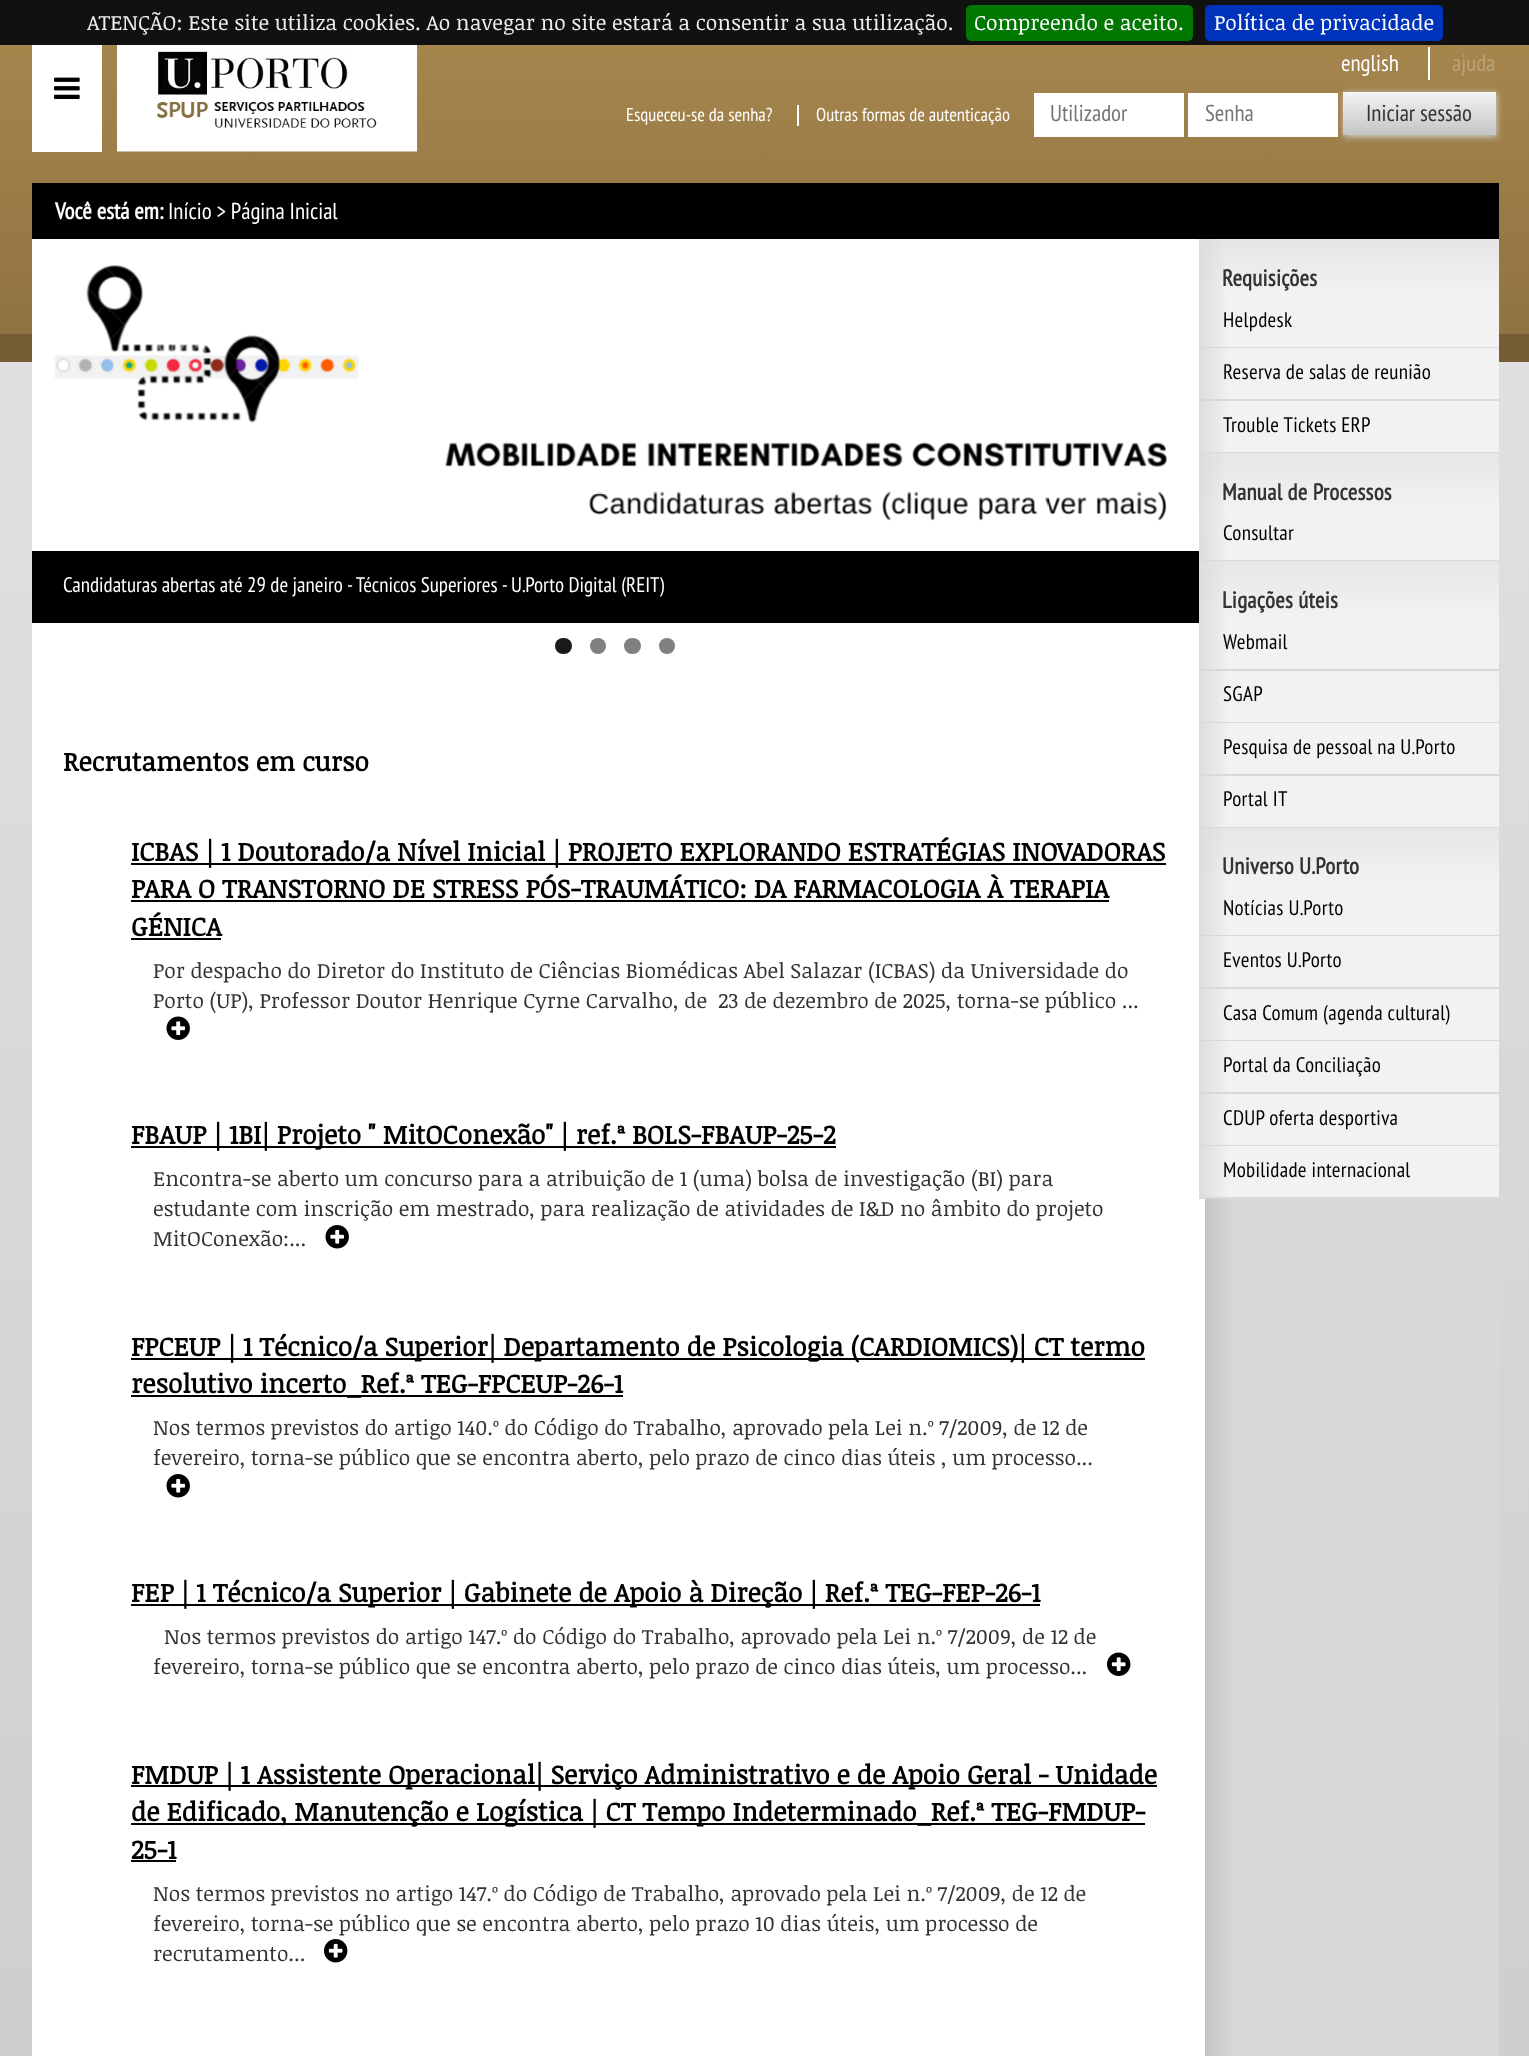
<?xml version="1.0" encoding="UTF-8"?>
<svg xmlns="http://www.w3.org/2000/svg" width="1529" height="2056">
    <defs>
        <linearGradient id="g1" gradientUnits="userSpaceOnUse" x1="765" y1="0" x2="765" y2="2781"><stop offset="0" stop-color="#A9884E"/><stop offset="0.12" stop-color="#8F7342"/><stop offset="0.12" stop-color="#755E36"/><stop offset="0.13" stop-color="#755E36"/><stop offset="0.13" stop-color="#E0E0E0"/><stop offset="1" stop-color="#C7C7C7"/></linearGradient>
        <filter id="blur1" x="-50%" y="-200%" width="200%" height="500%"><feGaussianBlur stdDeviation="3"/></filter>
        <linearGradient id="g2" gradientUnits="userSpaceOnUse" x1="1419" y1="91" x2="1419" y2="135"><stop offset="0" stop-color="#F5F5F5"/><stop offset="1" stop-color="#C4C4C4"/></linearGradient>
        <linearGradient id="g3" gradientUnits="userSpaceOnUse" x1="1499" y1="1439" x2="31" y2="1439"><stop offset="0" stop-color="#D8D8D8"/><stop offset="0.18" stop-color="#D8D8D8"/><stop offset="0.2" stop-color="#C4C4C4"/><stop offset="0.2" stop-color="#FFFFFF"/><stop offset="0.5" stop-color="#FFFFFF"/><stop offset="0.5" stop-color="#FFFFFF" stop-opacity="0"/><stop offset="1" stop-color="#000000" stop-opacity="0"/></linearGradient>
        <linearGradient id="g4" gradientUnits="userSpaceOnUse" x1="31" y1="1439" x2="1499" y2="1439"><stop offset="0" stop-color="#FFFFFF"/><stop offset="0.5" stop-color="#FFFFFF"/><stop offset="0.5" stop-color="#FFFFFF" stop-opacity="0"/><stop offset="1" stop-color="#000000" stop-opacity="0"/></linearGradient>
        <linearGradient id="g5" gradientUnits="userSpaceOnUse" x1="1349" y1="239" x2="1349" y2="296"><stop offset="0" stop-color="#E6E6E6"/><stop offset="1" stop-color="#F2F2F2"/></linearGradient>
        <linearGradient id="g6" gradientUnits="userSpaceOnUse" x1="1199" y1="267" x2="1499" y2="267"><stop offset="0" stop-color="#DDDDDD"/><stop offset="0.1" stop-color="#DDDDDD" stop-opacity="0"/><stop offset="1" stop-color="#DDDDDD" stop-opacity="0"/></linearGradient>
        <linearGradient id="g7" gradientUnits="userSpaceOnUse" x1="1199" y1="321" x2="1499" y2="321"><stop offset="0" stop-color="#DDDDDD"/><stop offset="0.1" stop-color="#F2F2F2"/><stop offset="1" stop-color="#F2F2F2"/></linearGradient>
        <linearGradient id="g8" gradientUnits="userSpaceOnUse" x1="1199" y1="374" x2="1499" y2="374"><stop offset="0" stop-color="#DDDDDD"/><stop offset="0.1" stop-color="#F2F2F2"/><stop offset="1" stop-color="#F2F2F2"/></linearGradient>
        <linearGradient id="g9" gradientUnits="userSpaceOnUse" x1="1199" y1="426" x2="1499" y2="426"><stop offset="0" stop-color="#DDDDDD"/><stop offset="0.1" stop-color="#F2F2F2"/><stop offset="1" stop-color="#F2F2F2"/></linearGradient>
        <linearGradient id="g10" gradientUnits="userSpaceOnUse" x1="1349" y1="453" x2="1349" y2="509"><stop offset="0" stop-color="#E6E6E6"/><stop offset="1" stop-color="#F2F2F2"/></linearGradient>
        <linearGradient id="g11" gradientUnits="userSpaceOnUse" x1="1199" y1="481" x2="1499" y2="481"><stop offset="0" stop-color="#DDDDDD"/><stop offset="0.1" stop-color="#DDDDDD" stop-opacity="0"/><stop offset="1" stop-color="#DDDDDD" stop-opacity="0"/></linearGradient>
        <linearGradient id="g12" gradientUnits="userSpaceOnUse" x1="1199" y1="534" x2="1499" y2="534"><stop offset="0" stop-color="#DDDDDD"/><stop offset="0.1" stop-color="#F2F2F2"/><stop offset="1" stop-color="#F2F2F2"/></linearGradient>
        <linearGradient id="g13" gradientUnits="userSpaceOnUse" x1="1349" y1="561" x2="1349" y2="618"><stop offset="0" stop-color="#E6E6E6"/><stop offset="1" stop-color="#F2F2F2"/></linearGradient>
        <linearGradient id="g14" gradientUnits="userSpaceOnUse" x1="1199" y1="590" x2="1499" y2="590"><stop offset="0" stop-color="#DDDDDD"/><stop offset="0.1" stop-color="#DDDDDD" stop-opacity="0"/><stop offset="1" stop-color="#DDDDDD" stop-opacity="0"/></linearGradient>
        <linearGradient id="g15" gradientUnits="userSpaceOnUse" x1="1199" y1="644" x2="1499" y2="644"><stop offset="0" stop-color="#DDDDDD"/><stop offset="0.1" stop-color="#F2F2F2"/><stop offset="1" stop-color="#F2F2F2"/></linearGradient>
        <linearGradient id="g16" gradientUnits="userSpaceOnUse" x1="1199" y1="696" x2="1499" y2="696"><stop offset="0" stop-color="#DDDDDD"/><stop offset="0.1" stop-color="#F2F2F2"/><stop offset="1" stop-color="#F2F2F2"/></linearGradient>
        <linearGradient id="g17" gradientUnits="userSpaceOnUse" x1="1199" y1="749" x2="1499" y2="749"><stop offset="0" stop-color="#DDDDDD"/><stop offset="0.1" stop-color="#F2F2F2"/><stop offset="1" stop-color="#F2F2F2"/></linearGradient>
        <linearGradient id="g18" gradientUnits="userSpaceOnUse" x1="1199" y1="801" x2="1499" y2="801"><stop offset="0" stop-color="#DDDDDD"/><stop offset="0.1" stop-color="#F2F2F2"/><stop offset="1" stop-color="#F2F2F2"/></linearGradient>
        <linearGradient id="g19" gradientUnits="userSpaceOnUse" x1="1349" y1="828" x2="1349" y2="884"><stop offset="0" stop-color="#E6E6E6"/><stop offset="1" stop-color="#F2F2F2"/></linearGradient>
        <linearGradient id="g20" gradientUnits="userSpaceOnUse" x1="1199" y1="856" x2="1499" y2="856"><stop offset="0" stop-color="#DDDDDD"/><stop offset="0.1" stop-color="#DDDDDD" stop-opacity="0"/><stop offset="1" stop-color="#DDDDDD" stop-opacity="0"/></linearGradient>
        <linearGradient id="g21" gradientUnits="userSpaceOnUse" x1="1199" y1="909" x2="1499" y2="909"><stop offset="0" stop-color="#DDDDDD"/><stop offset="0.1" stop-color="#F2F2F2"/><stop offset="1" stop-color="#F2F2F2"/></linearGradient>
        <linearGradient id="g22" gradientUnits="userSpaceOnUse" x1="1199" y1="962" x2="1499" y2="962"><stop offset="0" stop-color="#DDDDDD"/><stop offset="0.1" stop-color="#F2F2F2"/><stop offset="1" stop-color="#F2F2F2"/></linearGradient>
        <linearGradient id="g23" gradientUnits="userSpaceOnUse" x1="1199" y1="1014" x2="1499" y2="1014"><stop offset="0" stop-color="#DDDDDD"/><stop offset="0.1" stop-color="#F2F2F2"/><stop offset="1" stop-color="#F2F2F2"/></linearGradient>
        <linearGradient id="g24" gradientUnits="userSpaceOnUse" x1="1199" y1="1067" x2="1499" y2="1067"><stop offset="0" stop-color="#DDDDDD"/><stop offset="0.1" stop-color="#F2F2F2"/><stop offset="1" stop-color="#F2F2F2"/></linearGradient>
        <linearGradient id="g25" gradientUnits="userSpaceOnUse" x1="1199" y1="1119" x2="1499" y2="1119"><stop offset="0" stop-color="#DDDDDD"/><stop offset="0.1" stop-color="#F2F2F2"/><stop offset="1" stop-color="#F2F2F2"/></linearGradient>
        <linearGradient id="g26" gradientUnits="userSpaceOnUse" x1="1199" y1="1172" x2="1499" y2="1172"><stop offset="0" stop-color="#DDDDDD"/><stop offset="0.1" stop-color="#F2F2F2"/><stop offset="1" stop-color="#F2F2F2"/></linearGradient>
    </defs>
    <rect width="100%" height="100%" fill="#FFFFFF"/>
    <rect x="0" y="45" width="1529" height="2011" fill="url(#g1)"/>
    <rect x="0" y="0" width="1529" height="45" fill="#111111"/>
    <text x="87" y="30" font-family="Noticia Text" font-size="21" fill="#EEEEEE">ATENÇÃO: Este site utiliza cookies. Ao navegar no site estará a consentir a sua utilização.</text>
    <rect x="966" y="5" width="227" height="36" rx="5" fill="#007700"/>
    <text x="974" y="30" font-family="Noticia Text" font-size="21" fill="#FFFFFF">Compreendo e aceito.</text>
    <rect x="1205" y="5" width="238" height="36" rx="5" fill="#0033BB"/>
    <text x="1214" y="30" font-family="Noticia Text" font-size="21" fill="#FFFFFF">Política de privacidade</text>
    <rect x="32" y="45" width="70" height="107" fill="#FFFFFF"/>
    <image x="54" y="77" width="26" height="22" href="img_01.png"/>
    <image x="117" y="45" width="300" height="107" href="img_02.png"/>
    <text x="1341" y="71" font-family="PT Sans Narrow" font-size="23" fill="#FFFFFF">english</text>
    <rect x="1428" y="47" width="2" height="33" fill="#FFFFFF"/>
    <text x="1452" y="71" font-family="PT Sans Narrow" font-size="23" fill="#BBA379">ajuda</text>
    <text x="626" y="121" font-family="PT Sans Narrow" font-size="18.5" fill="#FFFFFF">Esqueceu-se da senha?</text>
    <text x="816" y="121" font-family="PT Sans Narrow" font-size="18.5" fill="#FFFFFF">Outras formas de autenticação</text>
    <rect x="797" y="105" width="2" height="21" fill="#FFFFFF"/>
    <rect x="1034" y="93" width="150" height="44" fill="#FFFFFF"/>
    <text x="1050" y="121" font-family="PT Sans Narrow" font-size="23" fill="#757575">Utilizador</text>
    <rect x="1188" y="93" width="150" height="44" fill="#FFFFFF"/>
    <text x="1205" y="121" font-family="PT Sans Narrow" font-size="23" fill="#757575">Senha</text>
    <rect x="1344" y="93" width="153" height="44" fill="#CCCCCC" filter="url(#blur1)"/>
    <rect x="1343" y="92" width="153" height="43" fill="url(#g2)"/>
    <text x="1366" y="121" font-family="PT Sans Narrow" font-size="23" fill="#333333">Iniciar sessão</text>
    <rect x="32" y="183" width="1467" height="56" fill="#000000"/>
    <text x="55" y="219" font-family="PT Sans Narrow" font-size="23" font-weight="700" fill="#FFFFFF">Você está em:</text>
    <text x="168" y="219" font-family="PT Sans Narrow" font-size="23" fill="#FFFFFF">Início &gt; Página Inicial</text>
    <rect x="765" y="623" width="734" height="1433" fill="url(#g3)"/>
    <rect x="32" y="623" width="733" height="1433" fill="url(#g4)"/>
    <rect x="32" y="551" width="1167" height="72" fill="#000000"/>
    <image x="32" y="239" width="1167" height="312" href="img_03.png"/>
    <text x="63" y="592" font-family="PT Sans Narrow" font-size="21" fill="#FFFFFF">Candidaturas abertas até 29 de janeiro - Técnicos Superiores - U.Porto Digital (REIT)</text>
    <rect x="555" y="638" width="17" height="16" rx="8" fill="#1A1A1A"/>
    <circle cx="598" cy="646" r="8" fill="#808080"/>
    <rect x="624" y="638" width="17" height="16" rx="8" fill="#808080"/>
    <circle cx="667" cy="646" r="8" fill="#808080"/>
    <text x="63" y="771" font-family="Noticia Text" font-size="26.25" font-weight="700" fill="#000000">Recrutamentos em curso</text>
    <rect x="131" y="863" width="1035" height="2" fill="#000000"/>
    <text font-family="Noticia Text" font-size="26.25" font-weight="700" fill="#000000">
        <tspan x="131" y="861">ICBAS | 1 Doutorado/a Nível Inicial | PROJETO EXPLORANDO ESTRATÉGIAS INOVADORAS</tspan>
        <tspan x="131" y="898">PARA O TRANSTORNO DE STRESS PÓS-TRAUMÁTICO: DA FARMACOLOGIA À TERAPIA</tspan>
    </text>
    <rect x="131" y="900" width="978" height="2" fill="#000000"/>
    <text x="131" y="936" font-family="Noticia Text" font-size="26.25" font-weight="700" fill="#000000">GÉNICA</text>
    <rect x="131" y="938" width="90" height="2" fill="#000000"/>
    <text font-family="Noticia Text" font-size="21" fill="#333333" xml:space="preserve"><tspan x="153" y="978">Por despacho do Diretor do Instituto de Ciências Biomédicas Abel Salazar (ICBAS) da Universidade do</tspan><tspan x="153" y="1008">Porto (UP), Professor Doutor Henrique Cyrne Carvalho, de  23 de dezembro de 2025, torna-se público ...</tspan></text>
    <image x="166" y="1016" width="24" height="24" href="img_04.png"/>
    <rect x="131" y="1146" width="705" height="2" fill="#000000"/>
    <text x="131" y="1144" font-family="Noticia Text" font-size="26.25" font-weight="700" fill="#000000">FBAUP | 1BI| Projeto " MitOConexão" | ref.ª BOLS-FBAUP-25-2</text>
    <text font-family="Noticia Text" font-size="21" fill="#333333">
        <tspan x="153" y="1186">Encontra-se aberto um concurso para a atribuição de 1 (uma) bolsa de investigação (BI) para</tspan>
        <tspan x="153" y="1216">estudante com inscrição em mestrado, para realização de atividades de I&amp;D no âmbito do projeto</tspan>
        <tspan x="153" y="1246">MitOConexão:...</tspan>
    </text>
    <image x="325" y="1225" width="24" height="24" href="img_05.png"/>
    <rect x="131" y="1358" width="1014" height="2" fill="#000000"/>
    <text x="131" y="1356" font-family="Noticia Text" font-size="26.25" font-weight="700" fill="#000000">FPCEUP | 1 Técnico/a Superior| Departamento de Psicologia (CARDIOMICS)| CT termo</text>
    <rect x="131" y="1395" width="492" height="2" fill="#000000"/>
    <text x="131" y="1393" font-family="Noticia Text" font-size="26.25" font-weight="700" fill="#000000">resolutivo incerto_Ref.ª TEG-FPCEUP-26-1</text>
    <text font-family="Noticia Text" font-size="21" fill="#333333">
        <tspan x="153" y="1435">Nos termos previstos do artigo 140.º do Código do Trabalho, aprovado pela Lei n.º 7/2009, de 12 de</tspan>
        <tspan x="153" y="1465">fevereiro, torna-se público que se encontra aberto, pelo prazo de cinco dias úteis , um processo...</tspan>
    </text>
    <image x="166" y="1474" width="24" height="24" href="img_05.png"/>
    <rect x="131" y="1604" width="909" height="2" fill="#000000"/>
    <text x="131" y="1602" font-family="Noticia Text" font-size="26.25" font-weight="700" fill="#000000">FEP | 1 Técnico/a Superior | Gabinete de Apoio à Direção | Ref.ª TEG-FEP-26-1</text>
    <text x="164" y="1644" font-family="Noticia Text" font-size="21" fill="#333333">Nos termos previstos do artigo 147.º do Código do Trabalho, aprovado pela Lei n.º 7/2009, de 12 de</text>
    <text x="153" y="1674" font-family="Noticia Text" font-size="21" fill="#333333">fevereiro, torna-se público que se encontra aberto, pelo prazo de cinco dias úteis, um processo...</text>
    <image x="1107" y="1652" width="24" height="24" href="img_06.png"/>
    <rect x="131" y="1785" width="1026" height="2" fill="#000000"/>
    <text x="131" y="1784" font-family="Noticia Text" font-size="26.25" font-weight="700" fill="#000000">FMDUP | 1 Assistente Operacional| Serviço Administrativo e de Apoio Geral - Unidade</text>
    <rect x="131" y="1823" width="1014" height="2" fill="#000000"/>
    <text font-family="Noticia Text" font-size="26.25" font-weight="700" fill="#000000">
        <tspan x="131" y="1821">de Edificado, Manutenção e Logística | CT Tempo Indeterminado_Ref.ª TEG-FMDUP-</tspan>
        <tspan x="131" y="1859">25-1</tspan>
    </text>
    <rect x="131" y="1860" width="45" height="2" fill="#000000"/>
    <text font-family="Noticia Text" font-size="21" fill="#333333">
        <tspan x="153" y="1901">Nos termos previstos no artigo 147.º do Código de Trabalho, aprovado pela Lei n.º 7/2009, de 12 de</tspan>
        <tspan x="153" y="1931">fevereiro, torna-se público que se encontra aberto, pelo prazo 10 dias úteis, um processo de</tspan>
        <tspan x="153" y="1961">recrutamento...</tspan>
    </text>
    <image x="324" y="1939" width="24" height="24" href="img_07.png"/>
    <rect x="1199" y="239" width="300" height="57" fill="url(#g5)"/>
    <rect x="1199" y="239" width="26" height="57" fill="url(#g6)"/>
    <text x="1222" y="286" font-family="PT Sans Narrow" font-size="23" font-weight="700" letter-spacing="0.3" fill="#333333">Requisições</text>
    <rect x="1199" y="296" width="300" height="51" fill="url(#g7)"/>
    <rect x="1199" y="347" width="300" height="1" fill="#D9D9D9"/>
    <text x="1223" y="327" font-family="PT Sans Narrow" font-size="21" letter-spacing="0.3" fill="#000000">Helpdesk</text>
    <rect x="1199" y="348" width="300" height="51" fill="url(#g8)"/>
    <rect x="1199" y="399" width="300" height="2" fill="#D9D9D9"/>
    <text x="1223" y="379" font-family="PT Sans Narrow" font-size="21" letter-spacing="0.3" fill="#000000">Reserva de salas de reunião</text>
    <rect x="1199" y="401" width="300" height="51" fill="url(#g9)"/>
    <rect x="1199" y="452" width="300" height="1" fill="#D9D9D9"/>
    <text x="1223" y="432" font-family="PT Sans Narrow" font-size="21" letter-spacing="0.3" fill="#000000">Trouble Tickets ERP</text>
    <rect x="1199" y="453" width="300" height="56" fill="url(#g10)"/>
    <rect x="1199" y="453" width="26" height="56" fill="url(#g11)"/>
    <text x="1222" y="500" font-family="PT Sans Narrow" font-size="23" font-weight="700" letter-spacing="0.3" fill="#333333">Manual de Processos</text>
    <rect x="1204" y="509" width="295" height="51" fill="url(#g12)"/>
    <rect x="1199" y="560" width="300" height="1" fill="#D9D9D9"/>
    <text x="1223" y="540" font-family="PT Sans Narrow" font-size="21" letter-spacing="0.3" fill="#000000">Consultar</text>
    <rect x="1199" y="561" width="300" height="57" fill="url(#g13)"/>
    <rect x="1199" y="561" width="26" height="57" fill="url(#g14)"/>
    <text x="1222" y="608" font-family="PT Sans Narrow" font-size="23" font-weight="700" letter-spacing="0.3" fill="#333333">Ligações úteis</text>
    <rect x="1199" y="618" width="300" height="51" fill="url(#g15)"/>
    <rect x="1199" y="669" width="34" height="2" fill="#D9D9D9"/>
    <text x="1223" y="649" font-family="PT Sans Narrow" font-size="21" letter-spacing="0.3" fill="#000000">Webmail</text>
    <rect x="1199" y="671" width="300" height="51" fill="url(#g16)"/>
    <rect x="1199" y="722" width="34" height="1" fill="#D9D9D9"/>
    <text x="1223" y="701" font-family="PT Sans Narrow" font-size="21" letter-spacing="0.3" fill="#000000">SGAP</text>
    <rect x="1199" y="723" width="300" height="51" fill="url(#g17)"/>
    <rect x="1199" y="774" width="34" height="2" fill="#D9D9D9"/>
    <text x="1223" y="754" font-family="PT Sans Narrow" font-size="21" letter-spacing="0.3" fill="#000000">Pesquisa de pessoal na U.Porto</text>
    <rect x="1199" y="776" width="300" height="51" fill="url(#g18)"/>
    <rect x="1199" y="827" width="34" height="1" fill="#D9D9D9"/>
    <text x="1223" y="806" font-family="PT Sans Narrow" font-size="21" letter-spacing="0.3" fill="#000000">Portal IT</text>
    <rect x="1199" y="828" width="300" height="56" fill="url(#g19)"/>
    <rect x="1199" y="828" width="26" height="56" fill="url(#g20)"/>
    <text x="1222" y="874" font-family="PT Sans Narrow" font-size="23" font-weight="700" letter-spacing="0.3" fill="#333333">Universo U.Porto</text>
    <rect x="1199" y="884" width="300" height="51" fill="url(#g21)"/>
    <rect x="1199" y="935" width="34" height="1" fill="#D9D9D9"/>
    <text x="1223" y="915" font-family="PT Sans Narrow" font-size="21" letter-spacing="0.3" fill="#000000">Notícias U.Porto</text>
    <rect x="1199" y="936" width="300" height="51" fill="url(#g22)"/>
    <rect x="1199" y="987" width="34" height="2" fill="#D9D9D9"/>
    <text x="1223" y="967" font-family="PT Sans Narrow" font-size="21" letter-spacing="0.3" fill="#000000">Eventos U.Porto</text>
    <rect x="1199" y="989" width="300" height="51" fill="url(#g23)"/>
    <rect x="1199" y="1040" width="34" height="1" fill="#D9D9D9"/>
    <text x="1223" y="1020" font-family="PT Sans Narrow" font-size="21" letter-spacing="0.3" fill="#000000">Casa Comum (agenda cultural)</text>
    <rect x="1199" y="1041" width="300" height="51" fill="url(#g24)"/>
    <rect x="1199" y="1092" width="34" height="2" fill="#D9D9D9"/>
    <text x="1223" y="1072" font-family="PT Sans Narrow" font-size="21" letter-spacing="0.3" fill="#000000">Portal da Conciliação</text>
    <rect x="1199" y="1094" width="300" height="51" fill="url(#g25)"/>
    <rect x="1199" y="1145" width="34" height="1" fill="#D9D9D9"/>
    <text x="1223" y="1125" font-family="PT Sans Narrow" font-size="21" letter-spacing="0.3" fill="#000000">CDUP oferta desportiva</text>
    <rect x="1199" y="1146" width="300" height="51" fill="url(#g26)"/>
    <rect x="1199" y="1197" width="34" height="2" fill="#D9D9D9"/>
    <text x="1223" y="1177" font-family="PT Sans Narrow" font-size="21" letter-spacing="0.3" fill="#000000">Mobilidade internacional</text>
</svg>
